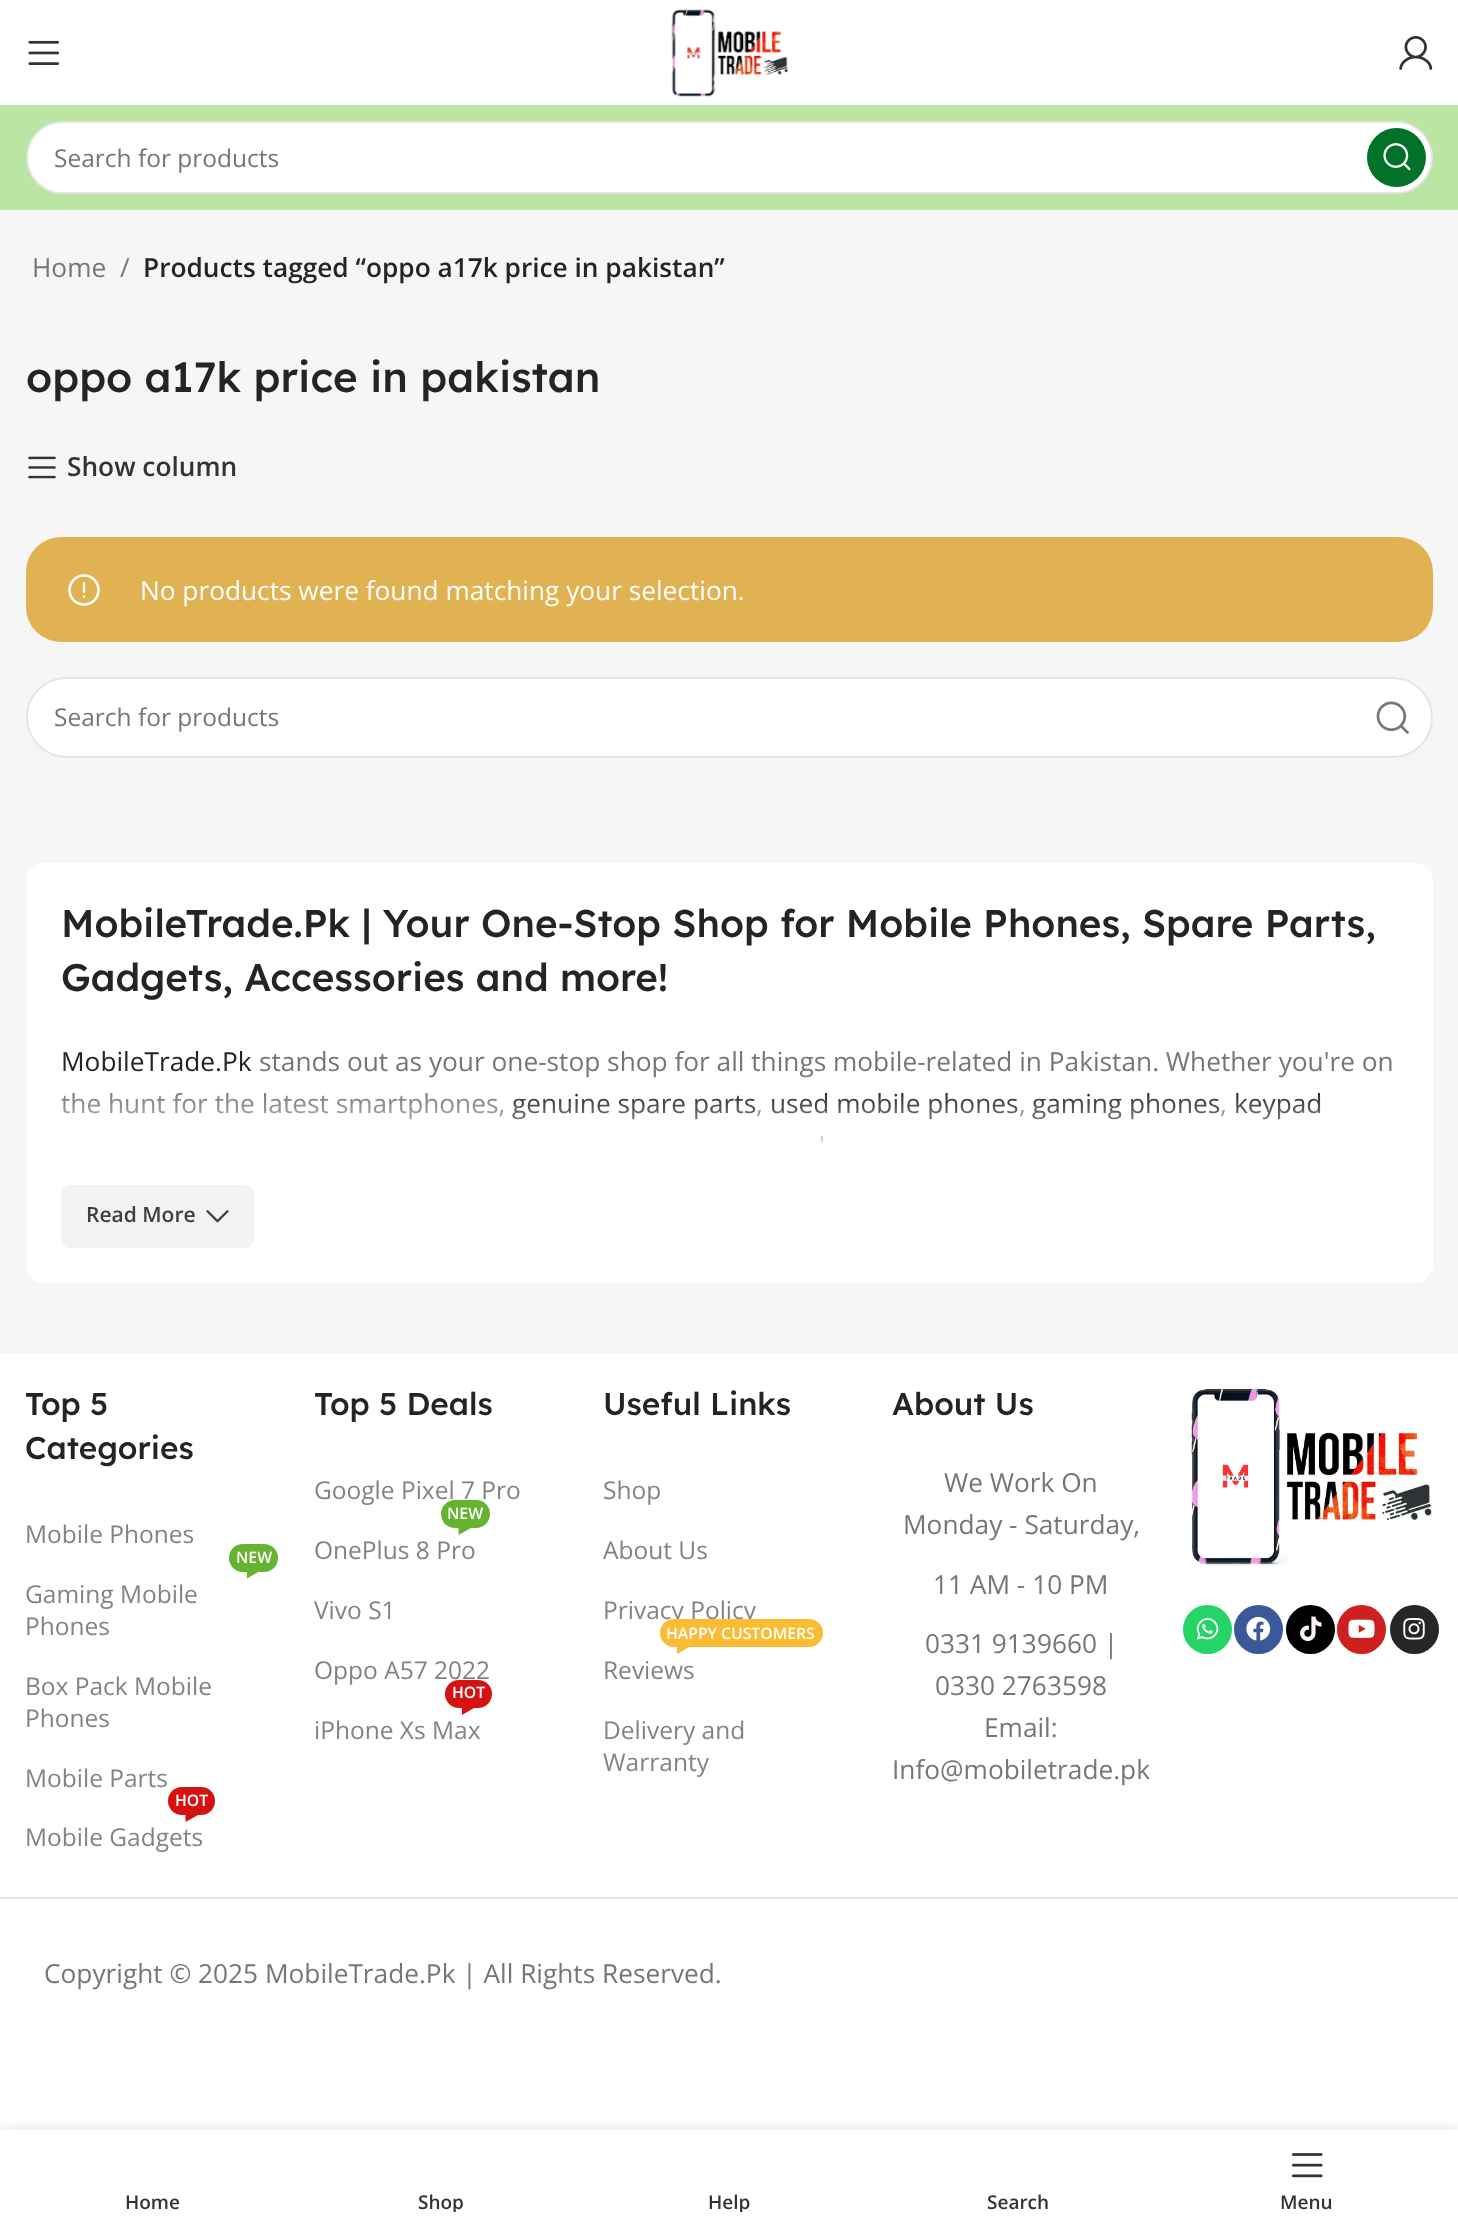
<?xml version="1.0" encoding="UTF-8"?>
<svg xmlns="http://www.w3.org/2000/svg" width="1458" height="2226">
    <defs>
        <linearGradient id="g1" gradientUnits="userSpaceOnUse" x1="730" y1="1090" x2="730" y2="1265"><stop offset="0" stop-color="#FFFFFF" stop-opacity="0"/><stop offset="0.45" stop-color="#FFFFFF"/></linearGradient>
        <clipPath id="clip1"><rect x="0" y="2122" width="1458" height="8"/></clipPath>
        <filter id="blur1" x="-50%" y="-200%" width="200%" height="500%"><feGaussianBlur stdDeviation="8"/></filter>
        <clipPath id="clip2"><rect x="315" y="2189" width="254" height="23"/></clipPath>
        <clipPath id="clip3"><rect x="604" y="2189" width="252" height="23"/></clipPath>
    </defs>
    <rect width="100%" height="100%" fill="#FFFFFF"/>
    <image x="28" y="40" width="31" height="25" href="img_01.png"/>
    <image x="671" y="9" width="118" height="88" href="img_02.png"/>
    <image x="1399" y="36" width="34" height="34" href="img_03.png"/>
    <rect x="0" y="105" width="1458" height="105" fill="#BBE5A2"/>
    <rect x="26" y="121" width="1407" height="73" rx="36.5" fill="#FFFFFF"/>
    <rect x="27" y="122" width="1405" height="71" rx="35.5" fill="none" stroke="#000000" stroke-opacity="0.1" stroke-width="2"/>
    <text x="54" y="167" font-family="Open Sans" font-size="24.5" fill="#767676">Search for products</text>
    <circle cx="1396.5" cy="157.5" r="29.5" fill="#017227"/>
    <image x="1383" y="143" width="28" height="28" href="img_04.png"/>
    <rect x="0" y="210" width="1458" height="1143" fill="#F6F6F6"/>
    <text x="32" y="277" font-family="Open Sans" font-size="26.25" fill="#767676">Home</text>
    <text x="120" y="277" font-family="Open Sans" font-size="26.25" fill="#767676">/</text>
    <text x="143" y="277" font-family="Open Sans" font-size="26.25" font-weight="600" fill="#242424">Products tagged “oppo a17k price in pakistan”</text>
    <text x="26" y="392" font-family="Lexend Deca" font-size="42" font-weight="500" fill="#242424">oppo a17k price in pakistan</text>
    <image x="28" y="456" width="28" height="23" href="img_05.png"/>
    <text x="67" y="476" font-family="Open Sans" font-size="26.25" font-weight="600" fill="#333333">Show column</text>
    <rect x="26" y="537" width="1407" height="105" rx="35" fill="#E0B252"/>
    <image x="68" y="574" width="32" height="32" href="img_06.png"/>
    <text x="140" y="600" font-family="Open Sans" font-size="26.25" fill="#FFFFFF">No products were found matching your selection.</text>
    <rect x="26" y="677" width="1407" height="81" rx="40.5" fill="#FFFFFF"/>
    <rect x="27" y="678" width="1405" height="79" rx="39.5" fill="none" stroke="#000000" stroke-opacity="0.1" stroke-width="2"/>
    <text x="54" y="726" font-family="Open Sans" font-size="24.5" fill="#767676">Search for products</text>
    <image x="1376" y="701" width="33" height="33" href="img_07.png"/>
    <rect x="26" y="863" width="1407" height="420" rx="18" fill="#FFFFFF"/>
    <text font-family="Lexend Deca" font-size="38.5" font-weight="500" fill="#242424">
        <tspan x="61" y="937">MobileTrade.Pk | Your One-Stop Shop for Mobile Phones, Spare Parts,</tspan>
        <tspan x="61" y="991">Gadgets, Accessories and more!</tspan>
    </text>
    <text x="61" y="1071" font-family="Open Sans" font-size="26.25" fill="#242424">MobileTrade.Pk</text>
    <text x="259" y="1071" font-family="Open Sans" font-size="26.25" fill="#767676">stands out as your one-stop shop for all things mobile-related in Pakistan. Whether you're on</text>
    <text x="61" y="1113" font-family="Open Sans" font-size="26.25" fill="#767676">the hunt for the latest smartphones,</text>
    <text x="512" y="1113" font-family="Open Sans" font-size="26.25" fill="#242424">genuine spare parts</text>
    <text x="756" y="1113" font-family="Open Sans" font-size="26.25" fill="#767676">,</text>
    <text x="770" y="1113" font-family="Open Sans" font-size="26.25" fill="#242424">used mobile phones</text>
    <text x="1019" y="1113" font-family="Open Sans" font-size="26.25" fill="#767676">,</text>
    <text x="1032" y="1113" font-family="Open Sans" font-size="26.25" fill="#242424">gaming phones</text>
    <text x="1220" y="1113" font-family="Open Sans" font-size="26.25" fill="#767676">,</text>
    <text x="1234" y="1113" font-family="Open Sans" font-size="26.25" fill="#242424">keypad</text>
    <text x="819" y="1155" font-family="Open Sans" font-size="26.25" fill="#767676">'</text>
    <rect x="61" y="1093" width="1260" height="50" fill="url(#g1)"/>
    <rect x="61" y="1185" width="193" height="63" rx="9" fill="#F3F3F3"/>
    <text x="86" y="1222" font-family="Open Sans" font-size="21" font-weight="600" fill="#3E3E3E">Read More</text>
    <image x="206" y="1210" width="23" height="13" href="img_08.png"/>
    <text font-family="Lexend Deca" font-size="31.5" font-weight="500" fill="#242424">
        <tspan x="25" y="1415">Top 5</tspan>
        <tspan x="25" y="1459">Categories</tspan>
    </text>
    <text x="25" y="1543" font-family="Open Sans" font-size="24.5" fill="#838383">Mobile Phones</text>
    <rect x="229" y="1544" width="49" height="28" rx="14" fill="#65B32E"/>
    <text x="236" y="1563" font-family="Open Sans" font-size="15.75" font-weight="600" fill="#FFFFFF">NEW</text>
    <path d="M 247 1571.5 H 259 L 247 1578.5 Z" fill="#65B32E"/>
    <text font-family="Open Sans" font-size="24.5" fill="#838383">
        <tspan x="25" y="1603">Gaming Mobile</tspan>
        <tspan x="25" y="1635">Phones</tspan>
    </text>
    <text font-family="Open Sans" font-size="24.5" fill="#838383">
        <tspan x="25" y="1695">Box Pack Mobile</tspan>
        <tspan x="25" y="1727">Phones</tspan>
    </text>
    <text x="25" y="1787" font-family="Open Sans" font-size="24.5" fill="#838383">Mobile Parts</text>
    <rect x="168" y="1787" width="47" height="28" rx="14" fill="#D41212"/>
    <text x="175" y="1806" font-family="Open Sans" font-size="15.75" font-weight="600" fill="#FFFFFF">HOT</text>
    <path d="M 185.5 1815 H 198 L 185.5 1822 Z" fill="#D41212"/>
    <text x="25" y="1846" font-family="Open Sans" font-size="24.5" fill="#838383">Mobile Gadgets</text>
    <text x="314" y="1415" font-family="Lexend Deca" font-size="31.5" font-weight="500" fill="#242424">Top 5 Deals</text>
    <text x="314" y="1499" font-family="Open Sans" font-size="24.5" fill="#838383">Google Pixel 7 Pro</text>
    <rect x="441" y="1500" width="49" height="28" rx="14" fill="#65B32E"/>
    <text x="447" y="1519" font-family="Open Sans" font-size="15.75" font-weight="600" fill="#FFFFFF">NEW</text>
    <path d="M 458.5 1528 H 471 L 458.5 1535 Z" fill="#65B32E"/>
    <text x="314" y="1559" font-family="Open Sans" font-size="24.5" fill="#838383">OnePlus 8 Pro</text>
    <text x="314" y="1619" font-family="Open Sans" font-size="24.5" fill="#838383">Vivo S1</text>
    <text x="314" y="1679" font-family="Open Sans" font-size="24.5" fill="#838383">Oppo A57 2022</text>
    <rect x="445" y="1680" width="47" height="28" rx="14" fill="#D41212"/>
    <text x="452" y="1698" font-family="Open Sans" font-size="15.75" font-weight="600" fill="#FFFFFF">HOT</text>
    <path d="M 462 1708 H 474 L 462 1715 Z" fill="#D41212"/>
    <text x="314" y="1739" font-family="Open Sans" font-size="24.5" fill="#838383">iPhone Xs Max</text>
    <text x="603" y="1415" font-family="Lexend Deca" font-size="31.5" font-weight="500" fill="#242424">Useful Links</text>
    <text x="603" y="1499" font-family="Open Sans" font-size="24.5" fill="#838383">Shop</text>
    <text x="603" y="1559" font-family="Open Sans" font-size="24.5" fill="#838383">About Us</text>
    <text x="603" y="1619" font-family="Open Sans" font-size="24.5" fill="#838383">Privacy Policy</text>
    <rect x="660" y="1619" width="163" height="28" rx="14" fill="#FBBC34"/>
    <text x="666" y="1639" font-family="Open Sans" font-size="15.75" font-weight="600" fill="#FFFFFF">HAPPY CUSTOMERS</text>
    <path d="M 677 1647 H 689.5 L 677 1654 Z" fill="#FBBC34"/>
    <text x="603" y="1679" font-family="Open Sans" font-size="24.5" fill="#838383">Reviews</text>
    <text font-family="Open Sans" font-size="24.5" fill="#838383">
        <tspan x="603" y="1739">Delivery and</tspan>
        <tspan x="603" y="1771">Warranty</tspan>
    </text>
    <text x="892" y="1415" font-family="Lexend Deca" font-size="31.5" font-weight="500" fill="#242424">About Us</text>
    <text x="944" y="1492" font-family="Open Sans" font-size="26.25" fill="#767676">We Work On</text>
    <text x="903" y="1534" font-family="Open Sans" font-size="26.25" fill="#767676">Monday - Saturday,</text>
    <text x="933" y="1594" font-family="Open Sans" font-size="26.25" fill="#767676">11 AM - 10 PM</text>
    <text x="925" y="1653" font-family="Open Sans" font-size="26.25" fill="#767676">0331 9139660 |</text>
    <text x="935" y="1695" font-family="Open Sans" font-size="26.25" fill="#767676">0330 2763598</text>
    <text x="984" y="1737" font-family="Open Sans" font-size="26.25" fill="#767676">Email:</text>
    <text x="892" y="1779" font-family="Open Sans" font-size="26.25" fill="#767676">Info@mobiletrade.pk</text>
    <image x="1190" y="1387" width="242" height="179" href="img_09.png"/>
    <circle cx="1207.5" cy="1629.5" r="24.5" fill="#25D366"/>
    <image x="1196" y="1618" width="23" height="22" href="img_10.png"/>
    <circle cx="1258.5" cy="1629.5" r="24.5" fill="#3B5998"/>
    <image x="1246" y="1616" width="25" height="25" href="img_11.png"/>
    <circle cx="1310.5" cy="1629.5" r="24.5" fill="#000000"/>
    <image x="1300" y="1616" width="22" height="26" href="img_12.png"/>
    <circle cx="1361.5" cy="1629.5" r="24.5" fill="#CD201F"/>
    <image x="1348" y="1619" width="27" height="19" href="img_13.png"/>
    <circle cx="1414.5" cy="1629.5" r="24.5" fill="#262626"/>
    <image x="1403" y="1618" width="22" height="22" href="img_14.png"/>
    <rect x="0" y="1897" width="1458" height="2" fill="#E4E4E4"/>
    <text x="44" y="1983" font-family="Open Sans" font-size="26.25" fill="#767676">Copyright © 2025 MobileTrade.Pk | All Rights Reserved.</text>
    <g clip-path="url(#clip1)">
        <rect x="0" y="2130" width="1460" height="96" fill="#000000" fill-opacity="0.12" filter="url(#blur1)"/>
    </g>
    <text x="125" y="2209" font-family="Open Sans" font-size="19" font-weight="600" fill="#333333">Home</text>
    <g clip-path="url(#clip2)">
        <text x="418" y="2209" font-family="Open Sans" font-size="19" font-weight="600" fill="#333333">Shop</text>
    </g>
    <g clip-path="url(#clip3)">
        <text x="708" y="2209" font-family="Open Sans" font-size="19" font-weight="600" fill="#333333">Help</text>
    </g>
    <text x="987" y="2209" font-family="Open Sans" font-size="19" font-weight="600" fill="#333333">Search</text>
    <image x="1291" y="2153" width="32" height="25" href="img_15.png"/>
    <text x="1280" y="2209" font-family="Open Sans" font-size="19" font-weight="600" fill="#333333">Menu</text>
</svg>
